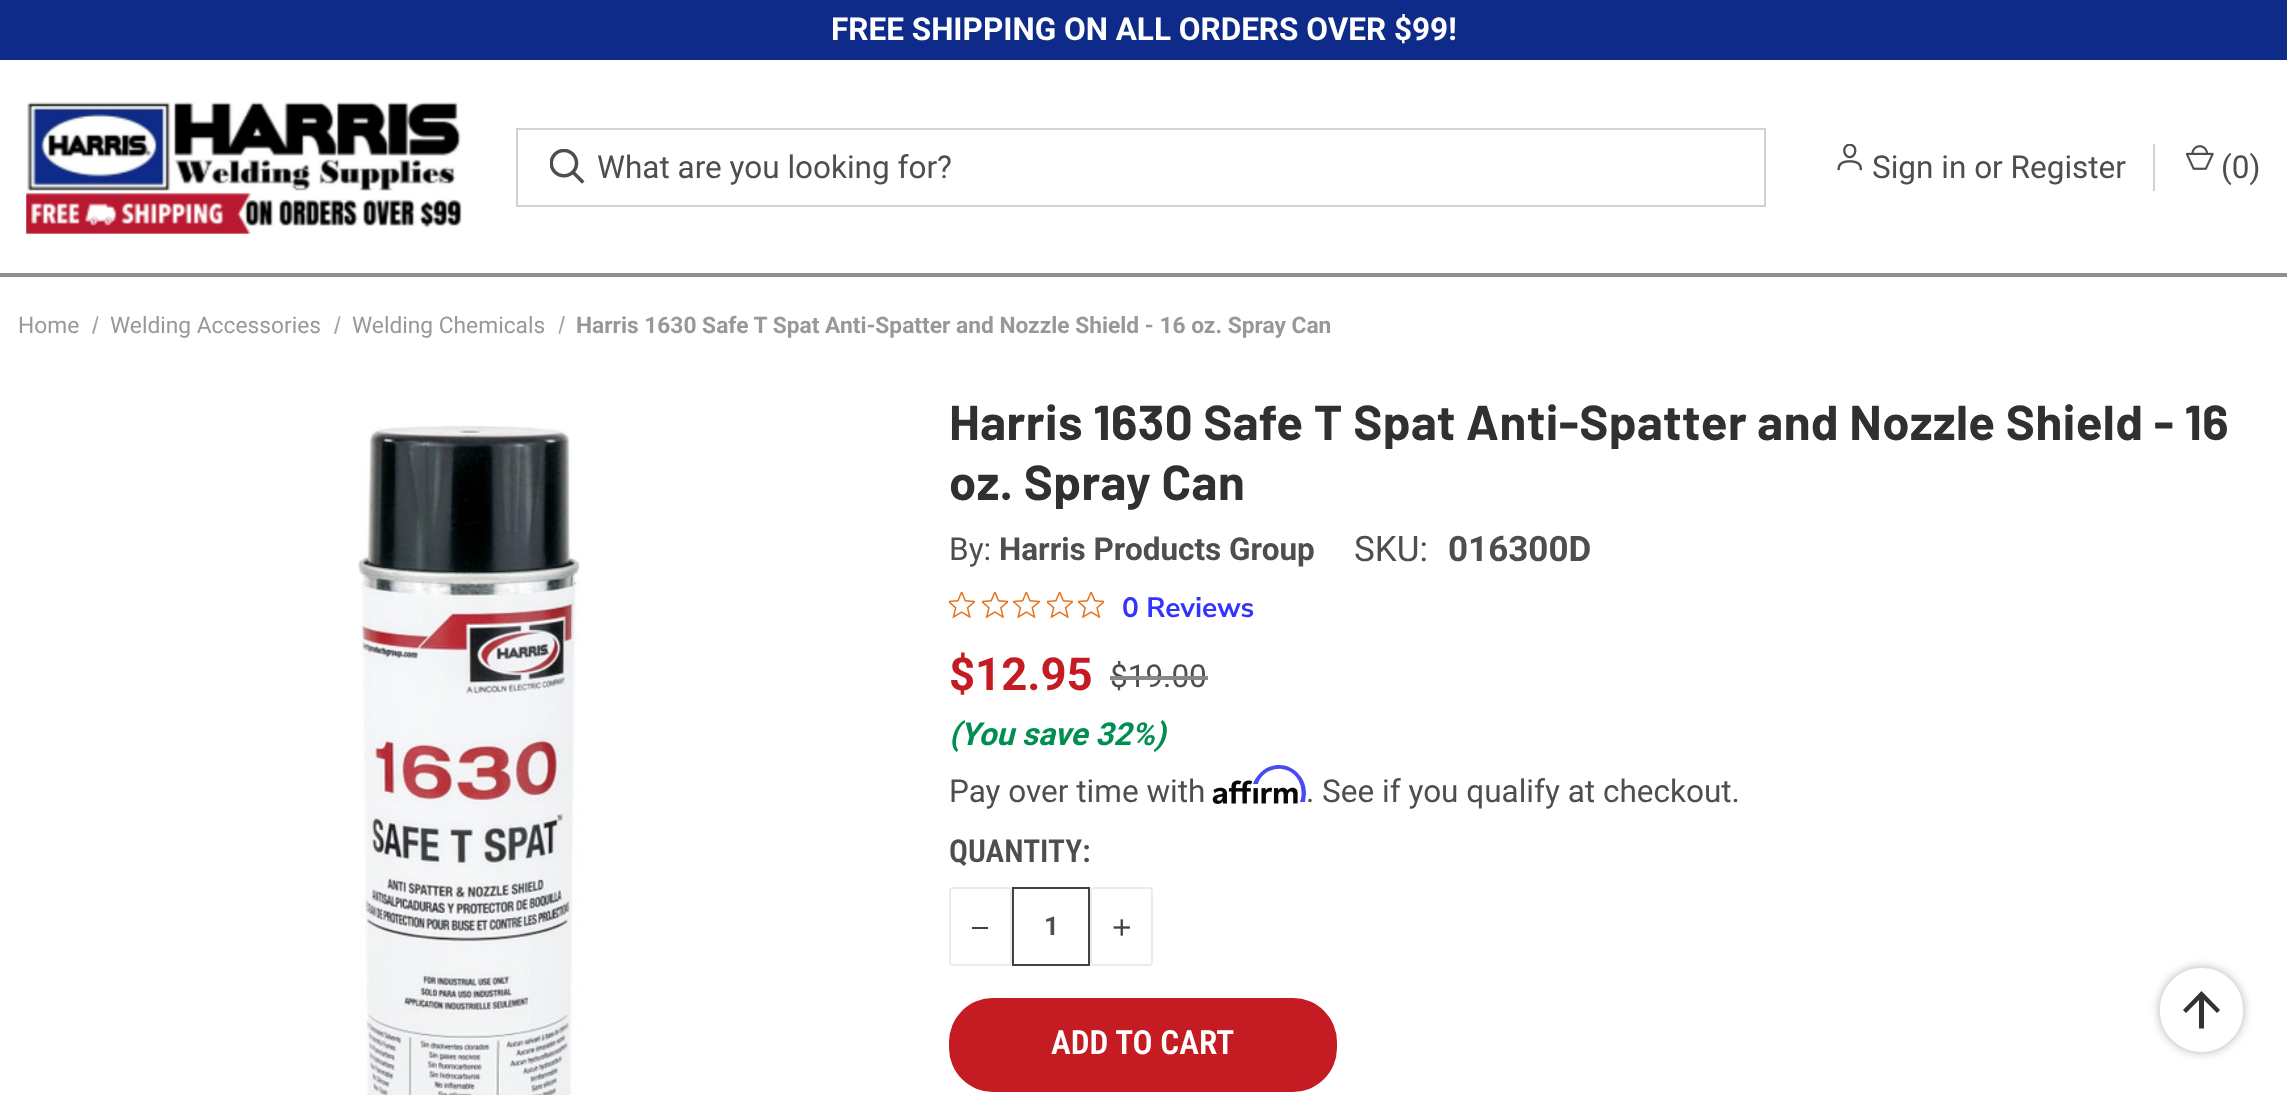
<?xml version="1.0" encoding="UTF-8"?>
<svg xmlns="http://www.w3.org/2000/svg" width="2287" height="1095">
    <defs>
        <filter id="blur1" x="-50%" y="-200%" width="200%" height="500%"><feGaussianBlur stdDeviation="4.5"/></filter>
    </defs>
    <rect width="100%" height="100%" fill="#FFFFFF"/>
    <rect x="0" y="0" width="2287" height="60" fill="#0E2B89"/>
    <text x="831" y="40" font-family="Roboto" font-size="31.5" font-weight="700" fill="#FFFFFF">FREE SHIPPING ON ALL ORDERS OVER $99!</text>
    <image x="26" y="102" width="436" height="132" href="img_01.png"/>
    <rect x="517" y="129" width="1248" height="77" fill="none" stroke="#D2D2D2" stroke-width="2"/>
    <image x="550" y="149" width="35" height="35" href="img_02.png"/>
    <text x="597" y="178" font-family="Roboto" font-size="31.5" fill="#4E4E4E">What are you looking for?</text>
    <image x="1837" y="144" width="26" height="27" href="img_03.png"/>
    <text x="1872" y="178" font-family="Roboto" font-size="31.5" fill="#4E4E4E">Sign in or Register</text>
    <rect x="2153" y="144" width="2" height="47" fill="#D2D2D2"/>
    <image x="2186" y="145" width="28" height="25" href="img_04.png"/>
    <text x="2221" y="178" font-family="Roboto" font-size="31.5" fill="#4E4E4E">(0)</text>
    <rect x="0" y="273" width="2287" height="4" fill="#8F8F8F"/>
    <text x="18" y="333" font-family="Roboto" font-size="22.75" fill="#989898">Home</text>
    <path d="M 97 316 L 98.5 316.5 L 94 334 L 92 333.5 Z" fill="#A3A3A3"/>
    <text x="110" y="333" font-family="Roboto" font-size="22.75" fill="#989898">Welding Accessories</text>
    <path d="M 339 316 L 340.5 316.5 L 336 334 L 334 333.5 Z" fill="#A3A3A3"/>
    <text x="352" y="333" font-family="Roboto" font-size="22.75" fill="#989898">Welding Chemicals</text>
    <path d="M 563 316 L 565 316.5 L 560 334 L 558.5 333.5 Z" fill="#A3A3A3"/>
    <text x="576" y="333" font-family="Roboto" font-size="22.75" font-weight="700" fill="#989898">Harris 1630 Safe T Spat Anti-Spatter and Nozzle Shield - 16 oz. Spray Can</text>
    <image x="358" y="425" width="223" height="670" href="img_05.png"/>
    <text font-family="Barlow" font-size="49" font-weight="700" letter-spacing="0.45" fill="#303030">
        <tspan x="949" y="440">Harris 1630 Safe T Spat Anti-Spatter and Nozzle Shield - 16</tspan>
        <tspan x="949" y="500">oz. Spray Can</tspan>
    </text>
    <text x="949" y="560" font-family="Roboto" font-size="31.5" fill="#4E4E4E">By:</text>
    <text x="999" y="560" font-family="Roboto" font-size="31.5" font-weight="700" fill="#4E4E4E">Harris Products Group</text>
    <text x="1354" y="561" font-family="Roboto" font-size="35" fill="#4E4E4E">SKU:</text>
    <text x="1448" y="561" font-family="Roboto" font-size="35" font-weight="700" fill="#4E4E4E">016300D</text>
    <image x="949" y="592" width="26" height="26" href="img_06.png"/>
    <image x="982" y="592" width="26" height="26" href="img_07.png"/>
    <image x="1013" y="592" width="27" height="26" href="img_08.png"/>
    <image x="1047" y="592" width="26" height="26" href="img_06.png"/>
    <image x="1078" y="592" width="26" height="26" href="img_09.png"/>
    <text x="1122" y="617" font-family="Nunito Sans" font-size="28" font-weight="200" fill="#3333FF">0 Reviews</text>
    <text x="949" y="690" font-family="Roboto" font-size="45.5" font-weight="700" fill="#C41C22">$12.95</text>
    <text x="1110" y="687" font-family="Roboto" font-size="31.5" fill="#4E4E4E">$19.00</text>
    <rect x="1110" y="676" width="98" height="4" fill="#888888"/>
    <text x="949" y="745" font-family="Roboto" font-size="31.5" font-weight="700" font-style="italic" fill="#008F51">(</text>
    <text x="960" y="745" font-family="Roboto" font-size="31.5" font-weight="700" font-style="italic" fill="#008F51">You save 32%)</text>
    <text x="949" y="802" font-family="Roboto" font-size="31.5" fill="#4E4E4E">Pay over time with</text>
    <image x="1212" y="780" width="86" height="24" href="img_10.png"/>
    <path d="M 1279 765 C 1267 765 1257 773 1253 784 H 1258 C 1259 779 1263 775 1267 772 C 1271 770 1277 768 1282 769 C 1298 771 1305 788 1300 802 H 1305 L 1306 793 C 1306 778 1294 765 1279 765 Z" fill="#4A4AF4"/>
    <text x="1306" y="802" font-family="Roboto" font-size="31.5" fill="#4E4E4E">. See if you qualify at checkout.</text>
    <text x="949" y="862" font-family="Roboto Condensed" font-size="31.5" font-weight="600" fill="#4E4E4E">QUANTITY:</text>
    <rect x="950" y="888" width="61" height="77" rx="3" fill="none" stroke="#EBEBEB" stroke-width="2"/>
    <rect x="972" y="927" width="16" height="2" fill="#424242"/>
    <rect x="1013" y="888" width="76" height="77" fill="none" stroke="#424242" stroke-width="2"/>
    <text x="1044" y="935" font-family="Roboto" font-size="26" font-weight="700" fill="#4E4E4E">1</text>
    <rect x="1091" y="888" width="61" height="77" rx="3" fill="none" stroke="#EBEBEB" stroke-width="2"/>
    <image x="1113" y="919" width="17" height="17" href="img_11.png"/>
    <rect x="949" y="998" width="388" height="94" rx="44" fill="#C41C22"/>
    <text x="1051" y="1054" font-family="Roboto Condensed" font-size="33.25" font-weight="600" fill="#FFFFFF">ADD TO CART</text>
    <rect x="2158" y="966" width="87" height="88" rx="43.5" fill="#000000" fill-opacity="0.2" filter="url(#blur1)"/>
    <rect x="2159" y="967" width="85" height="86" rx="42.5" fill="#FFFFFF" stroke="#E0E0E0" stroke-width="2"/>
    <path d="M 2199 1028.5 V 1000 L 2186 1013 L 2183 1010 L 2201.5 991 L 2220 1010 L 2217 1013 L 2204 1000 V 1028.5 Z" fill="#333333"/>
</svg>
